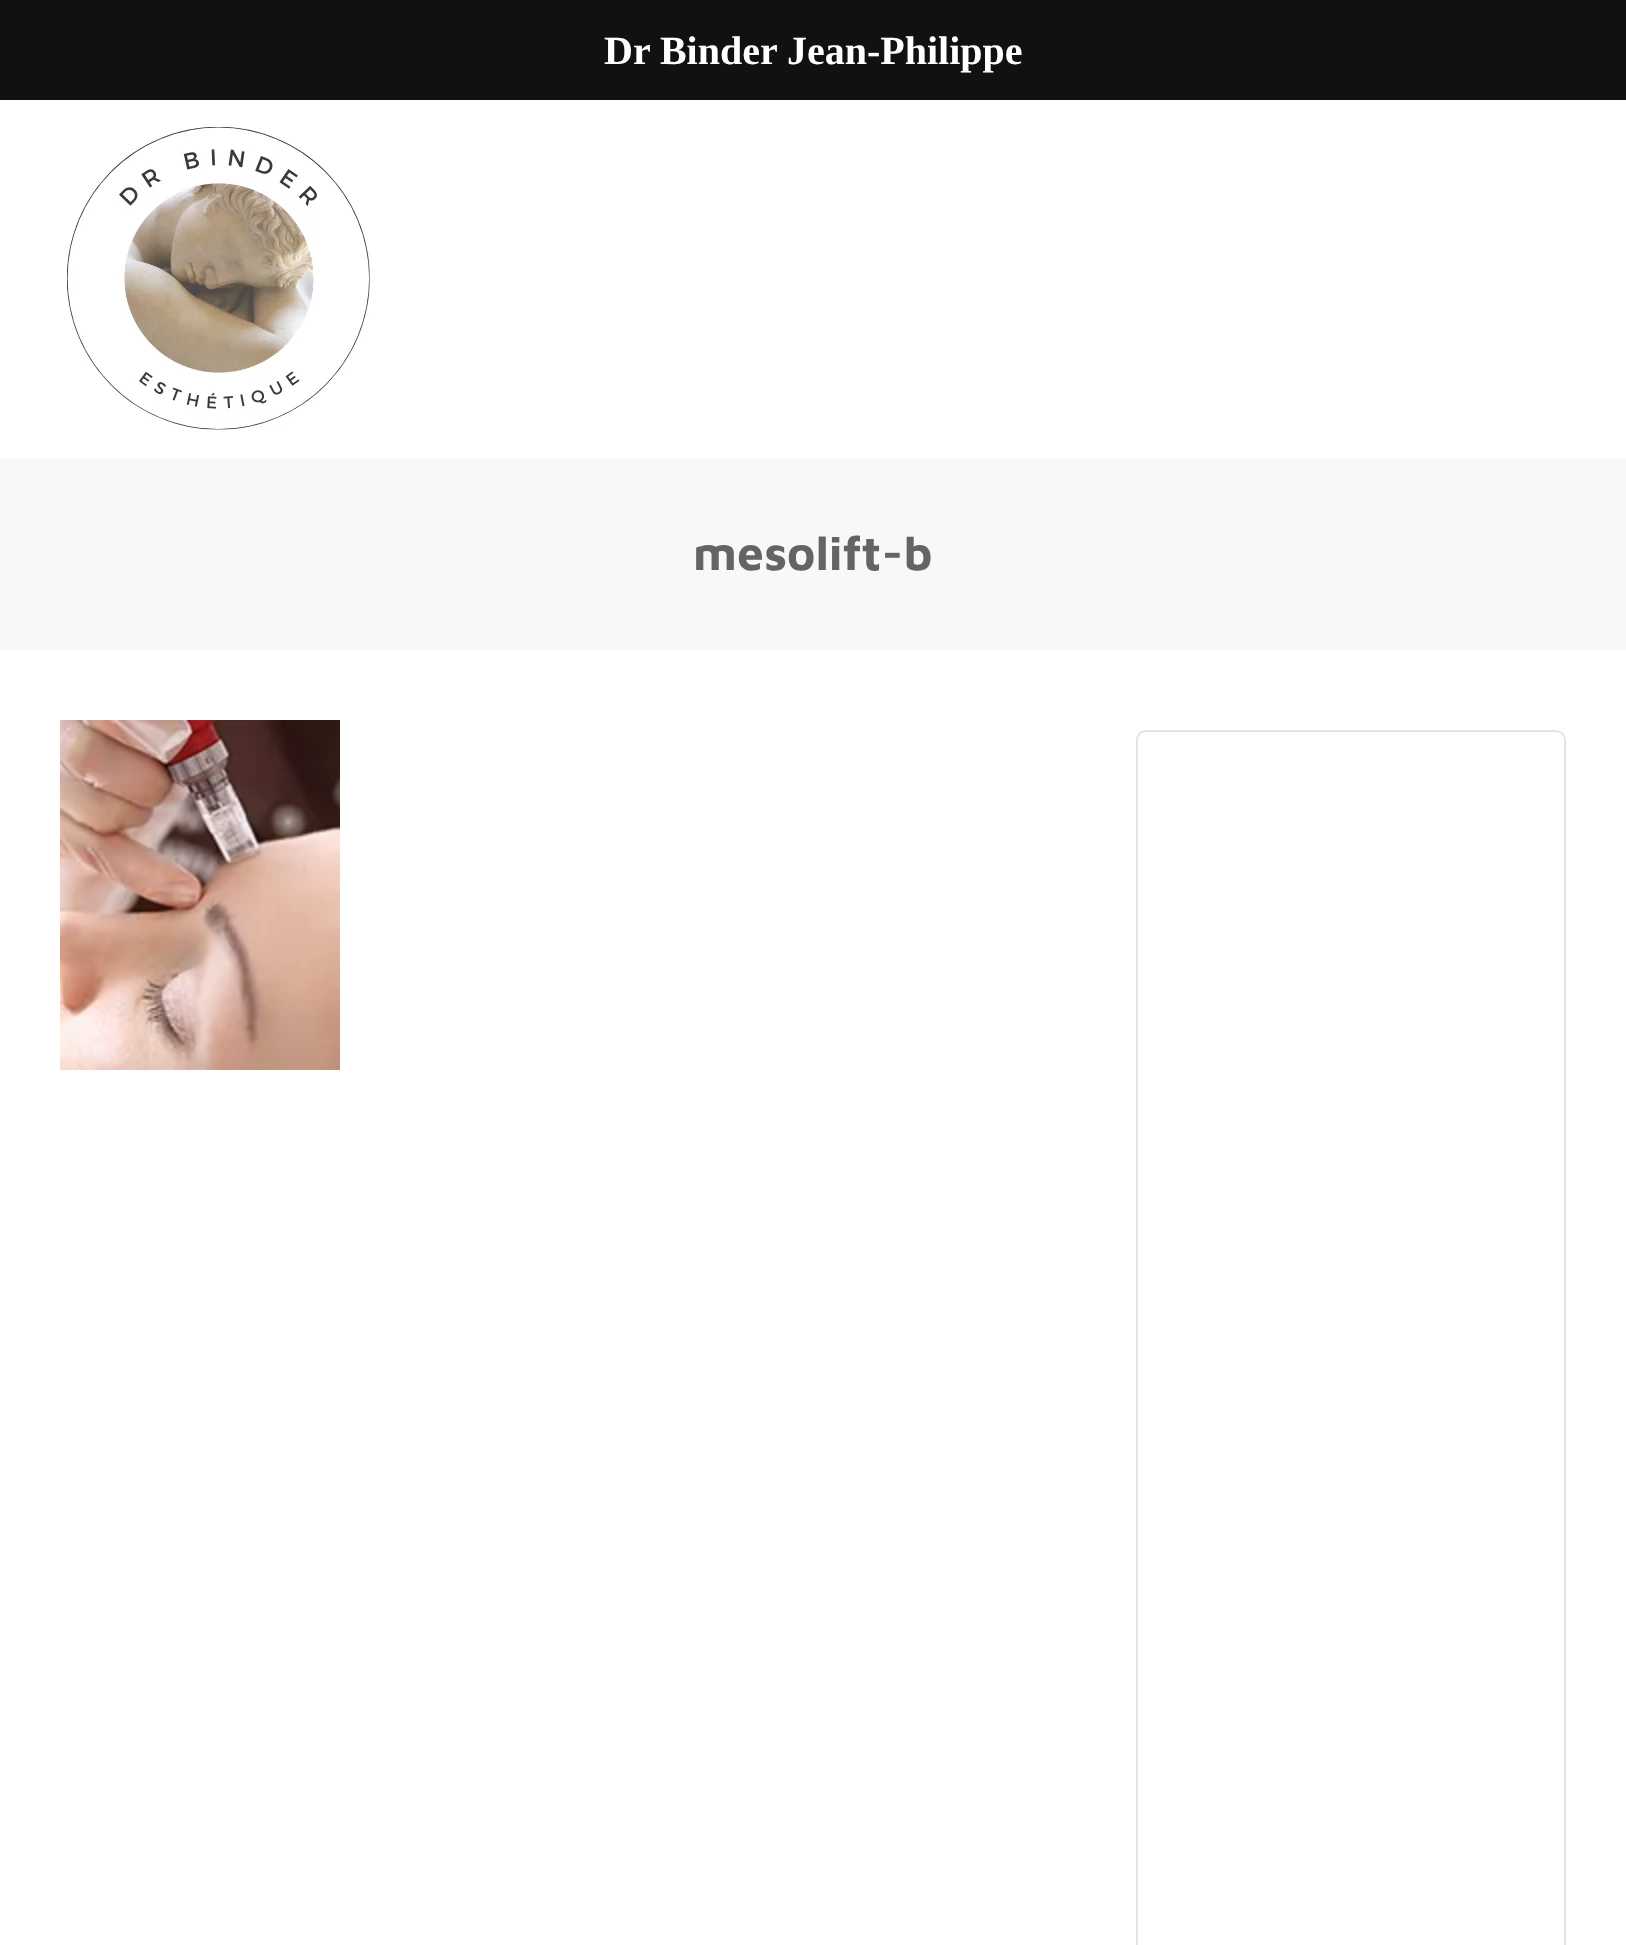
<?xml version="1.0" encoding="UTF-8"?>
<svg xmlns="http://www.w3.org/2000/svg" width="1626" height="1945">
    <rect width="100%" height="100%" fill="#FFFFFF"/>
    <rect x="0" y="0" width="1626" height="100" fill="#111111"/>
    <text x="604" y="64" font-family="Liberation Serif" font-size="40" font-weight="700" fill="#FFFFFF">Dr Binder Jean-Philippe</text>
    <image x="67" y="125" width="305" height="307" href="img_01.png"/>
    <rect x="0" y="458" width="1626" height="192" fill="#F8F8F8"/>
    <text x="693" y="570" font-family="Maven Pro" font-size="48" font-weight="700" fill="#646464">mesolift-b</text>
    <image x="60" y="720" width="280" height="350" href="img_02.png"/>
    <rect x="1137" y="731" width="428" height="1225" rx="9" fill="none" stroke="#E1E5E7" stroke-width="2"/>
</svg>
